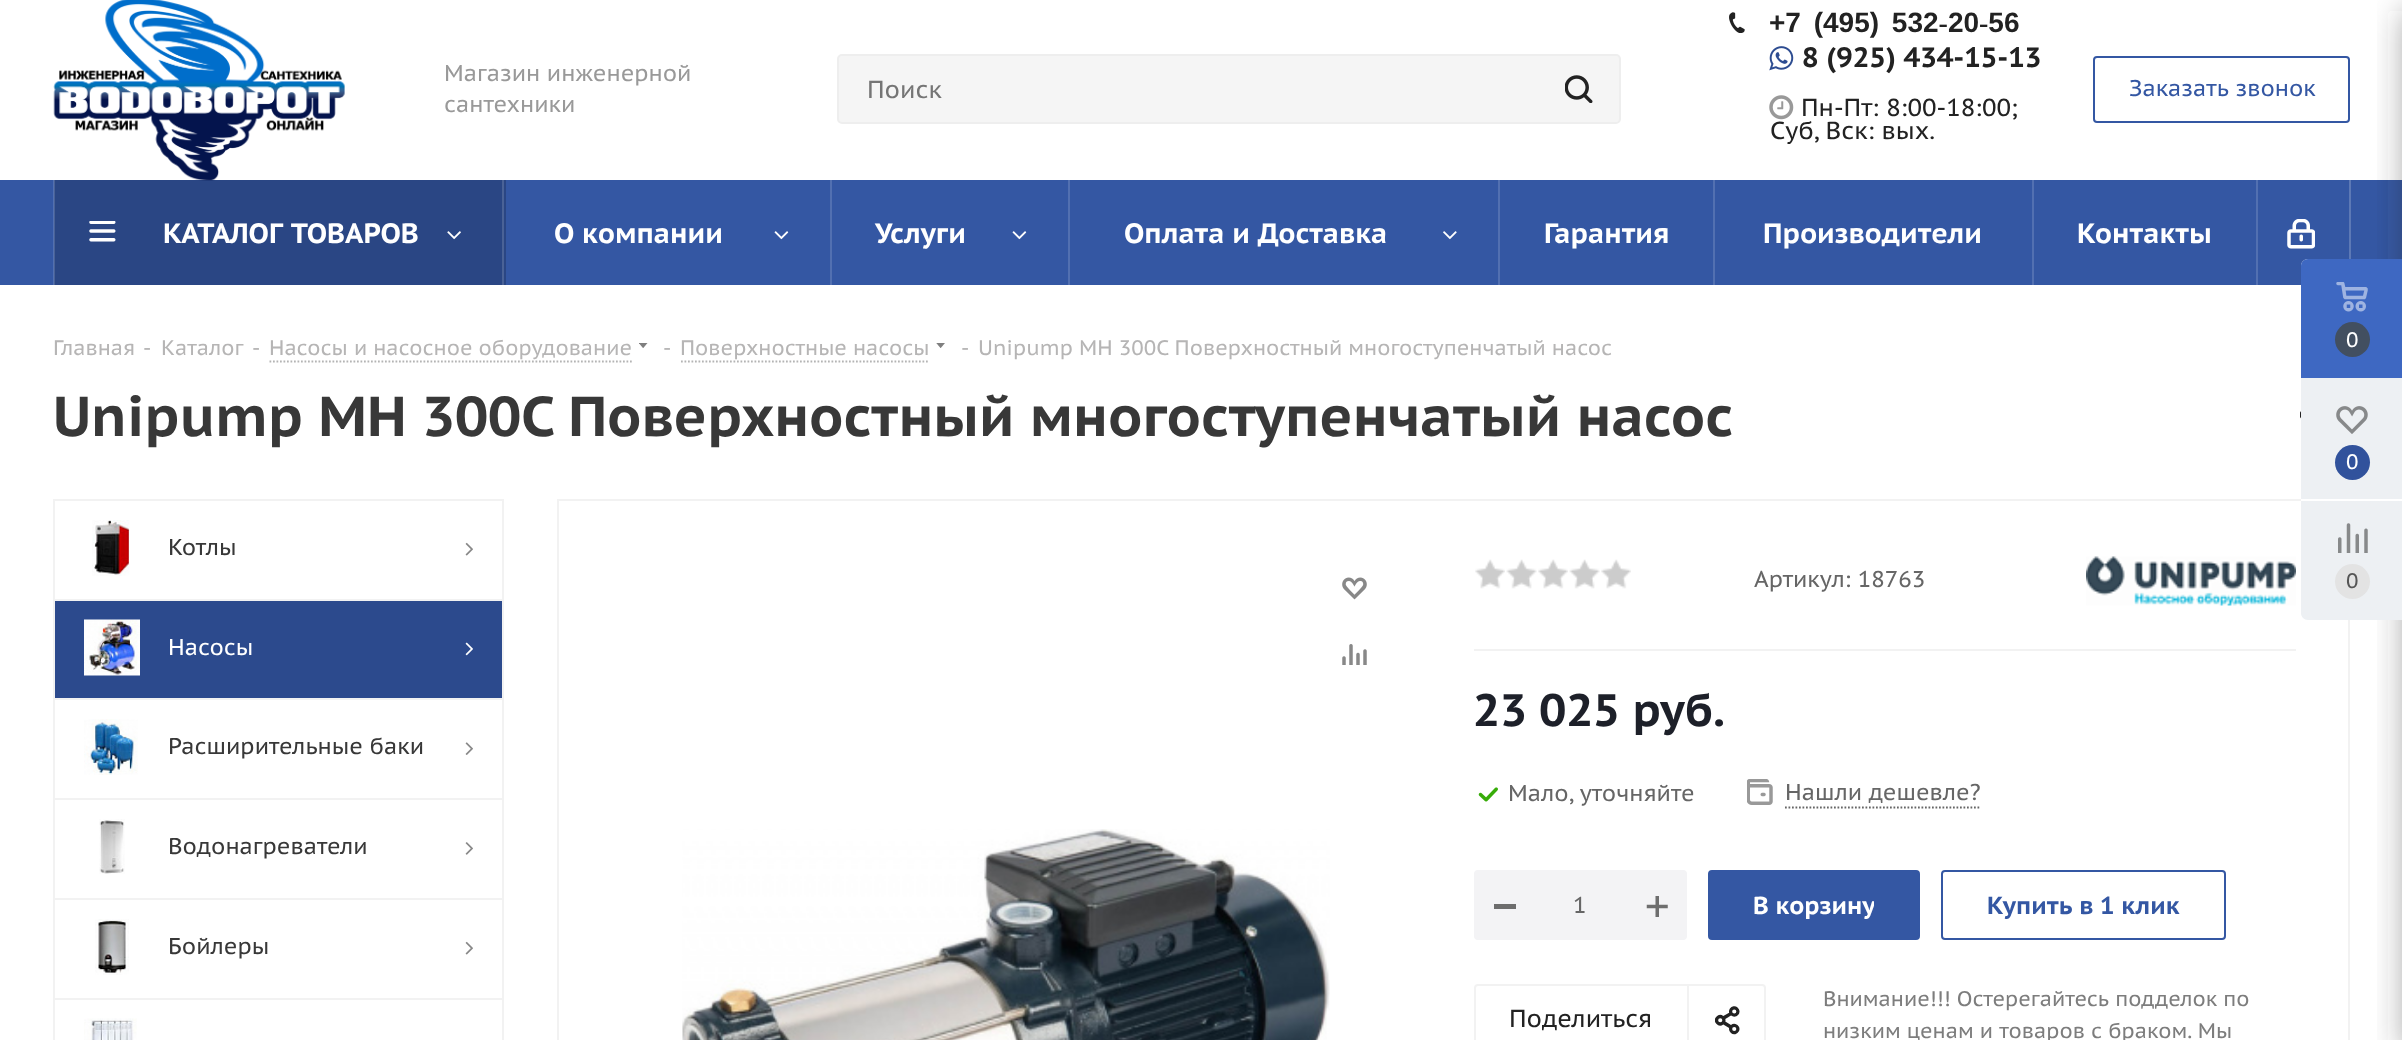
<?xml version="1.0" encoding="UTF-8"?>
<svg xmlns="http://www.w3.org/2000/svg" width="2402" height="1040">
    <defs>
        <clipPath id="clip1"><rect x="1754" y="891" width="120" height="28"/></clipPath>
        <filter id="blur1" x="-50%" y="-200%" width="200%" height="500%"><feGaussianBlur stdDeviation="16"/></filter>
    </defs>
    <rect width="100%" height="100%" fill="#FFFFFF"/>
    <rect x="0" y="180" width="2402" height="105" fill="#3457A3"/>
    <rect x="53" y="180" width="1" height="105" fill="#5270B1"/>
    <rect x="55" y="180" width="451" height="105" fill="#2A4684"/>
    <rect x="54" y="180" width="1" height="105" fill="#4A6296"/>
    <image x="53" y="0" width="292" height="181" href="img_01.png"/>
    <text font-family="PT Sans Caption" font-size="22.75" fill="#999999">
        <tspan x="444" y="81">Магазин инженерной</tspan>
        <tspan x="444" y="112">сантехники</tspan>
    </text>
    <rect x="838" y="55" width="782" height="68" rx="4" fill="#F5F5F5" stroke="#EEEEEE" stroke-width="2"/>
    <text x="867" y="98" font-family="PT Sans Caption" font-size="24.5" fill="#757575">Поиск</text>
    <image x="1565" y="75" width="28" height="28" href="img_02.png"/>
    <image x="1729" y="12" width="16" height="21" href="img_03.png"/>
    <text x="1769" y="32" word-spacing="5" font-family="Liberation Sans" font-size="28" font-weight="700" fill="#222222">+7 (495) 532‑20‑56</text>
    <image x="1769" y="46" width="25" height="25" href="img_04.png"/>
    <text x="1802" y="67" font-family="PT Sans Caption" font-size="28" font-weight="700" fill="#222222">8 (925) 434-15-13</text>
    <image x="1769" y="95" width="25" height="25" href="img_05.png"/>
    <text x="1801" y="116" font-family="PT Sans Caption" font-size="24.5" fill="#222222">Пн-Пт: 8:00-18:00;</text>
    <text x="1770" y="139" font-family="PT Sans Caption" font-size="24.5" fill="#222222">Суб, Вск: вых.</text>
    <rect x="2094" y="57" width="255" height="65" rx="3" fill="none" stroke="#3457A3" stroke-width="2"/>
    <text x="2129" y="96" font-family="PT Sans Caption" font-size="22.75" fill="#3457A3">Заказать звонок</text>
    <rect x="502" y="180" width="2" height="105" fill="#4A6296"/>
    <image x="89" y="221" width="27" height="21" href="img_06.png"/>
    <text x="163" y="243" font-family="PT Sans Caption" font-size="28" font-weight="700" fill="#FFFFFF">КАТАЛОГ ТОВАРОВ</text>
    <image x="447" y="231" width="14" height="9" href="img_07.png"/>
    <rect x="830" y="180" width="2" height="105" fill="#5270B1"/>
    <text x="554" y="243" font-family="PT Sans Caption" font-size="28" font-weight="700" fill="#FFFFFF">О компании</text>
    <image x="774" y="231" width="15" height="9" href="img_08.png"/>
    <rect x="1068" y="180" width="2" height="105" fill="#5270B1"/>
    <text x="875" y="243" font-family="PT Sans Caption" font-size="28" font-weight="700" fill="#FFFFFF">Услуги</text>
    <image x="1012" y="231" width="15" height="9" href="img_08.png"/>
    <rect x="1498" y="180" width="2" height="105" fill="#5270B1"/>
    <text x="1124" y="243" font-family="PT Sans Caption" font-size="28" font-weight="700" fill="#FFFFFF">Оплата и Доставка</text>
    <image x="1443" y="231" width="14" height="9" href="img_09.png"/>
    <rect x="1713" y="180" width="2" height="105" fill="#5270B1"/>
    <text x="1544" y="243" font-family="PT Sans Caption" font-size="28" font-weight="700" fill="#FFFFFF">Гарантия</text>
    <rect x="2032" y="180" width="2" height="105" fill="#5270B1"/>
    <text x="1763" y="243" font-family="PT Sans Caption" font-size="28" font-weight="700" fill="#FFFFFF">Производители</text>
    <rect x="2256" y="180" width="2" height="105" fill="#5270B1"/>
    <text x="2077" y="243" font-family="PT Sans Caption" font-size="28" font-weight="700" fill="#FFFFFF">Контакты</text>
    <rect x="2349" y="180" width="2" height="79" fill="#5D79B5"/>
    <image x="2287" y="219" width="28" height="30" href="img_10.png"/>
    <text x="53" y="355" font-family="PT Sans Caption" font-size="21" fill="#B6B5B5">Главная</text>
    <text x="143" y="355" font-family="PT Sans Caption" font-size="21" fill="#B6B5B5">-</text>
    <text x="161" y="355" font-family="PT Sans Caption" font-size="21" fill="#B6B5B5">Каталог</text>
    <text x="252" y="355" font-family="PT Sans Caption" font-size="21" fill="#B6B5B5">-</text>
    <text x="269" y="355" font-family="PT Sans Caption" font-size="21" fill="#B6B5B5">Насосы и насосное оборудование</text>
    <path d="M 269.5 361.5 H 632" fill="none" stroke="#B4B4B4" stroke-width="1.8" stroke-dasharray="1.75 1.75"/>
    <image x="639" y="343" width="9" height="5" href="img_11.png"/>
    <text x="663" y="355" font-family="PT Sans Caption" font-size="21" fill="#B6B5B5">-</text>
    <text x="680" y="355" font-family="PT Sans Caption" font-size="21" fill="#B6B5B5">Поверхностные насосы</text>
    <path d="M 681 361.5 H 929" fill="none" stroke="#B4B4B4" stroke-width="1.8" stroke-dasharray="1.75 1.75"/>
    <image x="936" y="343" width="9" height="5" href="img_12.png"/>
    <text x="961" y="355" font-family="PT Sans Caption" font-size="21" fill="#B6B5B5">-</text>
    <text x="978" y="355" font-family="PT Sans Caption" font-size="21" fill="#B6B5B5">Unipump MH 300C Поверхностный многоступенчатый насос</text>
    <text x="53" y="436" font-family="PT Sans Caption" font-size="56" font-weight="700" fill="#383838">Unipump MH 300C Поверхностный многоступенчатый насос</text>
    <image x="2300" y="411" width="1" height="8" href="img_13.png"/>
    <rect x="53" y="499" width="451" height="2" fill="#F2F2F2"/>
    <rect x="502" y="499" width="2" height="100" fill="#F2F2F2"/>
    <rect x="53" y="499" width="2" height="100" fill="#F2F2F2"/>
    <image x="92" y="520" width="38" height="56" href="img_14.png"/>
    <text x="168" y="555" font-family="PT Sans Caption" font-size="22.75" fill="#383838">Котлы</text>
    <image x="465" y="542" width="8" height="14" href="img_15.png"/>
    <rect x="55" y="601" width="447" height="97" fill="#2C4A8D"/>
    <rect x="53" y="599" width="451" height="2" fill="#F2F2F2"/>
    <rect x="502" y="599" width="2" height="99" fill="#F2F2F2"/>
    <rect x="53" y="599" width="2" height="99" fill="#F2F2F2"/>
    <image x="84" y="619" width="56" height="57" href="img_16.png"/>
    <text x="168" y="655" font-family="PT Sans Caption" font-size="22.75" fill="#FFFFFF">Насосы</text>
    <image x="465" y="642" width="8" height="14" href="img_17.png"/>
    <rect x="53" y="698" width="451" height="2" fill="#F2F2F2"/>
    <rect x="502" y="698" width="2" height="100" fill="#F2F2F2"/>
    <rect x="53" y="698" width="2" height="100" fill="#F2F2F2"/>
    <image x="84" y="719" width="54" height="56" href="img_18.png"/>
    <text x="168" y="754" font-family="PT Sans Caption" font-size="22.75" fill="#383838">Расширительные баки</text>
    <image x="465" y="742" width="8" height="13" href="img_19.png"/>
    <rect x="53" y="798" width="451" height="2" fill="#F2F2F2"/>
    <rect x="502" y="798" width="2" height="100" fill="#F2F2F2"/>
    <rect x="53" y="798" width="2" height="100" fill="#F2F2F2"/>
    <image x="99" y="819" width="26" height="55" href="img_20.png"/>
    <text x="168" y="854" font-family="PT Sans Caption" font-size="22.75" fill="#383838">Водонагреватели</text>
    <image x="465" y="842" width="8" height="13" href="img_21.png"/>
    <rect x="53" y="898" width="451" height="2" fill="#F2F2F2"/>
    <rect x="502" y="898" width="2" height="100" fill="#F2F2F2"/>
    <rect x="53" y="898" width="2" height="100" fill="#F2F2F2"/>
    <image x="95" y="919" width="34" height="56" href="img_22.png"/>
    <text x="168" y="954" font-family="PT Sans Caption" font-size="22.75" fill="#383838">Бойлеры</text>
    <image x="465" y="941" width="8" height="14" href="img_15.png"/>
    <rect x="53" y="998" width="451" height="2" fill="#F2F2F2"/>
    <rect x="502" y="998" width="2" height="42" fill="#F2F2F2"/>
    <rect x="53" y="998" width="2" height="42" fill="#F2F2F2"/>
    <image x="84" y="1018" width="53" height="22" href="img_23.png"/>
    <rect x="558" y="500" width="1791" height="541" fill="none" stroke="#F2F2F2" stroke-width="2"/>
    <image x="1342" y="577" width="25" height="23" href="img_24.png"/>
    <image x="1342" y="644" width="25" height="21" href="img_25.png"/>
    <image x="682" y="829" width="648" height="211" href="img_26.png"/>
    <rect x="1474" y="649" width="822" height="2" fill="#F2F2F2"/>
    <image x="1475" y="559" width="30" height="30" href="img_27.png"/>
    <image x="1506" y="559" width="31" height="30" href="img_28.png"/>
    <image x="1538" y="559" width="30" height="30" href="img_29.png"/>
    <image x="1569" y="559" width="31" height="30" href="img_30.png"/>
    <image x="1601" y="559" width="30" height="30" href="img_27.png"/>
    <text x="1754" y="587" font-family="PT Sans Caption" font-size="22.75" fill="#666666">Артикул: 18763</text>
    <image x="2086" y="556" width="210" height="50" href="img_31.png"/>
    <text x="1473" y="726" font-family="PT Sans Caption" font-size="45.5" font-weight="700" fill="#1D2029">23 025 руб.</text>
    <image x="1478" y="787" width="20" height="15" href="img_32.png"/>
    <text x="1508" y="801" font-family="PT Sans Caption" font-size="22.75" fill="#666666">Мало, уточняйте</text>
    <image x="1747" y="779" width="26" height="26" href="img_33.png"/>
    <text x="1785" y="800" font-family="PT Sans Caption" font-size="22.75" fill="#666666">Нашли дешевле?</text>
    <path d="M 1785 807.5 H 1981" fill="none" stroke="#666666" stroke-width="1.8" stroke-dasharray="1.75 1.75"/>
    <rect x="1475" y="871" width="211" height="68" rx="3" fill="#F3F3F5" stroke="#F3F3F5" stroke-width="2"/>
    <rect x="1494" y="904" width="22" height="5" fill="#6D6D6D"/>
    <text x="1573" y="913" font-family="PT Sans Caption" font-size="22.75" fill="#666666">1</text>
    <image x="1646" y="896" width="22" height="21" href="img_34.png"/>
    <rect x="1709" y="871" width="210" height="68" rx="3" fill="#3457A3" stroke="#3457A3" stroke-width="2"/>
    <g clip-path="url(#clip1)">
        <text x="1753" y="914" font-family="PT Sans Caption" font-size="24.5" font-weight="700" fill="#FFFFFF">В корзину</text>
    </g>
    <rect x="1942" y="871" width="283" height="68" rx="3" fill="none" stroke="#3457A3" stroke-width="2"/>
    <text x="1987" y="914" font-family="PT Sans Caption" font-size="24.5" font-weight="700" fill="#3457A3">Купить в 1 клик</text>
    <rect x="1687" y="984" width="2" height="56" fill="#F2F2F2"/>
    <image x="1715" y="1006" width="25" height="29" href="img_35.png"/>
    <rect x="1475" y="985" width="290" height="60" rx="3" fill="none" stroke="#F2F2F2" stroke-width="2"/>
    <text x="1509" y="1027" font-family="PT Sans Caption" font-size="24.5" fill="#222222">Поделиться</text>
    <text font-family="PT Sans Caption" font-size="21" fill="#7D7D7D">
        <tspan x="1823" y="1006">Внимание!!! Остерегайтесь подделок по</tspan>
        <tspan x="1823" y="1038">низким ценам и товаров с браком. Мы</tspan>
    </text>
    <rect x="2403" y="11" width="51" height="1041" rx="4" fill="#2C2C2C" fill-opacity="0.4" filter="url(#blur1)"/>
    <path d="M 2308 259 H 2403 V 620 H 2308 C 2304 620 2301 617 2301 613 V 266 C 2301 262 2304 259 2308 259 Z" fill="#EDF0F3"/>
    <path d="M 2308 259 H 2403 V 378 H 2301 V 266 C 2301 262 2304 259 2308 259 Z" fill="#3E68C2"/>
    <image x="2336" y="282" width="32" height="30" href="img_36.png"/>
    <circle cx="2352.5" cy="339.5" r="17.5" fill="#424F60"/>
    <text x="2346" y="347" font-family="PT Sans Caption" font-size="21" fill="#FFFFFF">0</text>
    <image x="2336" y="406" width="32" height="28" href="img_37.png"/>
    <circle cx="2352.5" cy="462.5" r="17.5" fill="#31529C"/>
    <text x="2346" y="469" font-family="PT Sans Caption" font-size="21" fill="#FFFFFF">0</text>
    <rect x="2301" y="499" width="101" height="2" fill="#FFFFFF"/>
    <image x="2338" y="523" width="30" height="30" href="img_38.png"/>
    <circle cx="2352.5" cy="581.5" r="17.5" fill="#E3E3E3"/>
    <text x="2346" y="588" font-family="PT Sans Caption" font-size="21" fill="#555555">0</text>
</svg>
